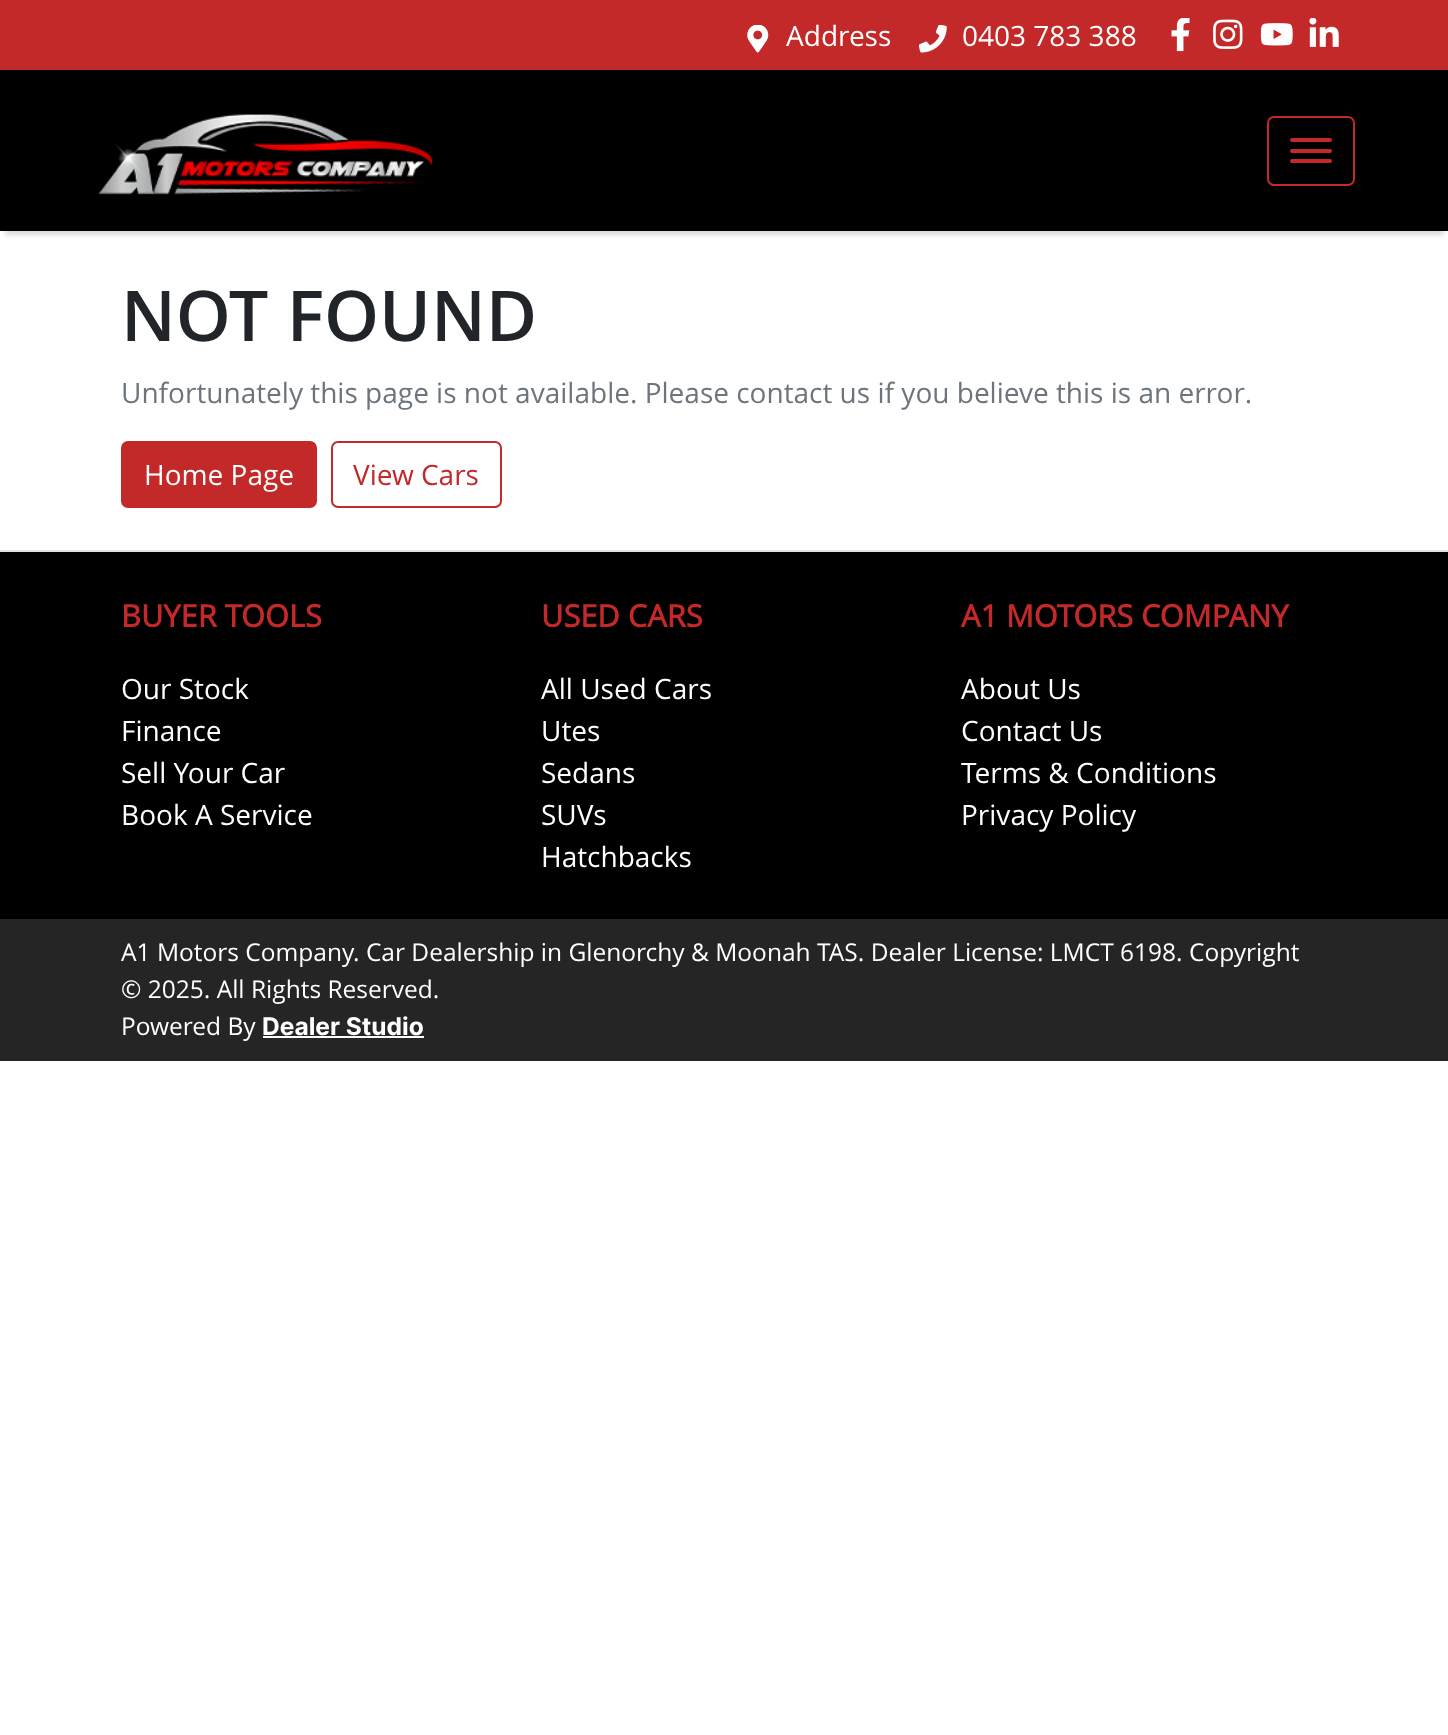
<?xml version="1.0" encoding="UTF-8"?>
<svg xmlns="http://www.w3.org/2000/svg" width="1448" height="1735">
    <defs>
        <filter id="blur1" x="-50%" y="-200%" width="200%" height="500%"><feGaussianBlur stdDeviation="2.5"/></filter>
    </defs>
    <rect width="100%" height="100%" fill="#FFFFFF"/>
    <rect x="0" y="0" width="1448" height="70" fill="#C22928"/>
    <image x="747" y="25" width="22" height="28" href="img_01.png"/>
    <text x="786" y="46" font-family="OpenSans" font-size="28" fill="#FFFFFF">Address</text>
    <image x="919" y="25" width="28" height="28" href="img_02.png"/>
    <text x="962" y="46" font-family="OpenSans" font-size="28" fill="#FFFFFF">0403 783 388</text>
    <image x="1171" y="18" width="19" height="34" href="img_03.png"/>
    <image x="1213" y="19" width="30" height="30" href="img_04.png"/>
    <image x="1260" y="23" width="33" height="23" href="img_05.png"/>
    <image x="1309" y="18" width="30" height="29" href="img_06.png"/>
    <rect x="5" y="84" width="1439" height="151" fill="#000000" fill-opacity="0.15" filter="url(#blur1)"/>
    <rect x="0" y="70" width="1448" height="161" fill="#000000"/>
    <image x="98" y="114" width="335" height="81" href="img_07.png"/>
    <rect x="1268" y="117" width="86" height="68" rx="6" fill="none" stroke="#C22928" stroke-width="2"/>
    <rect x="1290" y="138" width="42" height="4" rx="2" fill="#C22928"/>
    <rect x="1290" y="149" width="42" height="4" rx="2" fill="#C22928"/>
    <rect x="1290" y="159" width="42" height="4" rx="2" fill="#C22928"/>
    <text x="121" y="341" font-family="Open Sans" font-size="70" font-weight="600" fill="#212529">NOT FOUND</text>
    <text x="121" y="403" font-family="OpenSans" font-size="28" fill="#6C757D">Unfortunately this page is not available. Please contact us if you believe this is an error.</text>
    <rect x="122" y="442" width="194" height="65" rx="6" fill="#C22928" stroke="#C22928" stroke-width="2"/>
    <text x="144" y="485" font-family="OpenSans" font-size="28" fill="#FFFFFF">Home Page</text>
    <rect x="332" y="442" width="169" height="65" rx="6" fill="none" stroke="#C22928" stroke-width="2"/>
    <text x="353" y="485" font-family="OpenSans" font-size="28" fill="#C22928">View Cars</text>
    <rect x="0" y="552" width="1448" height="367" fill="#000000"/>
    <rect x="0" y="550" width="1448" height="2" fill="#DEE2E6"/>
    <text x="121" y="627" font-family="OpenSans" font-size="30.75" font-weight="700" fill="#C22928">BUYER TOOLS</text>
    <text font-family="OpenSans" font-size="28" fill="#FFFFFF">
        <tspan x="121" y="699">Our Stock</tspan>
        <tspan x="121" y="741">Finance</tspan>
        <tspan x="121" y="783">Sell Your Car</tspan>
        <tspan x="121" y="825">Book A Service</tspan>
    </text>
    <text x="541" y="627" font-family="OpenSans" font-size="30.75" font-weight="700" fill="#C22928">USED CARS</text>
    <text font-family="OpenSans" font-size="28" fill="#FFFFFF">
        <tspan x="541" y="699">All Used Cars</tspan>
        <tspan x="541" y="741">Utes</tspan>
        <tspan x="541" y="783">Sedans</tspan>
        <tspan x="541" y="825">SUVs</tspan>
        <tspan x="541" y="867">Hatchbacks</tspan>
    </text>
    <text x="961" y="627" font-family="OpenSans" font-size="30.75" font-weight="700" fill="#C22928">A1 MOTORS COMPANY</text>
    <text font-family="OpenSans" font-size="28" fill="#FFFFFF">
        <tspan x="961" y="699">About Us</tspan>
        <tspan x="961" y="741">Contact Us</tspan>
        <tspan x="961" y="783">Terms &amp; Conditions</tspan>
        <tspan x="961" y="825">Privacy Policy</tspan>
    </text>
    <rect x="0" y="919" width="1448" height="142" fill="#252525"/>
    <text x="121" y="961" font-family="OpenSans" font-size="24.5" fill="#FFFFFF">A1 Motors Company</text>
    <text x="353" y="961" font-family="OpenSans" font-size="24.5" fill="#FFFFFF">. Car Dealership in Glenorchy &amp; Moonah TAS. Dealer License: LMCT 6198. Copyright</text>
    <text font-family="OpenSans" font-size="24.5" fill="#FFFFFF">
        <tspan x="121" y="998">© 2025. All Rights Reserved.</tspan>
        <tspan x="121" y="1035">Powered By</tspan>
    </text>
    <text x="262" y="1035" font-family="Inter" font-size="24.5" font-weight="700" fill="#FFFFFF">Dealer Studio</text>
    <rect x="263" y="1036" width="161" height="2" fill="#FFFFFF"/>
</svg>
